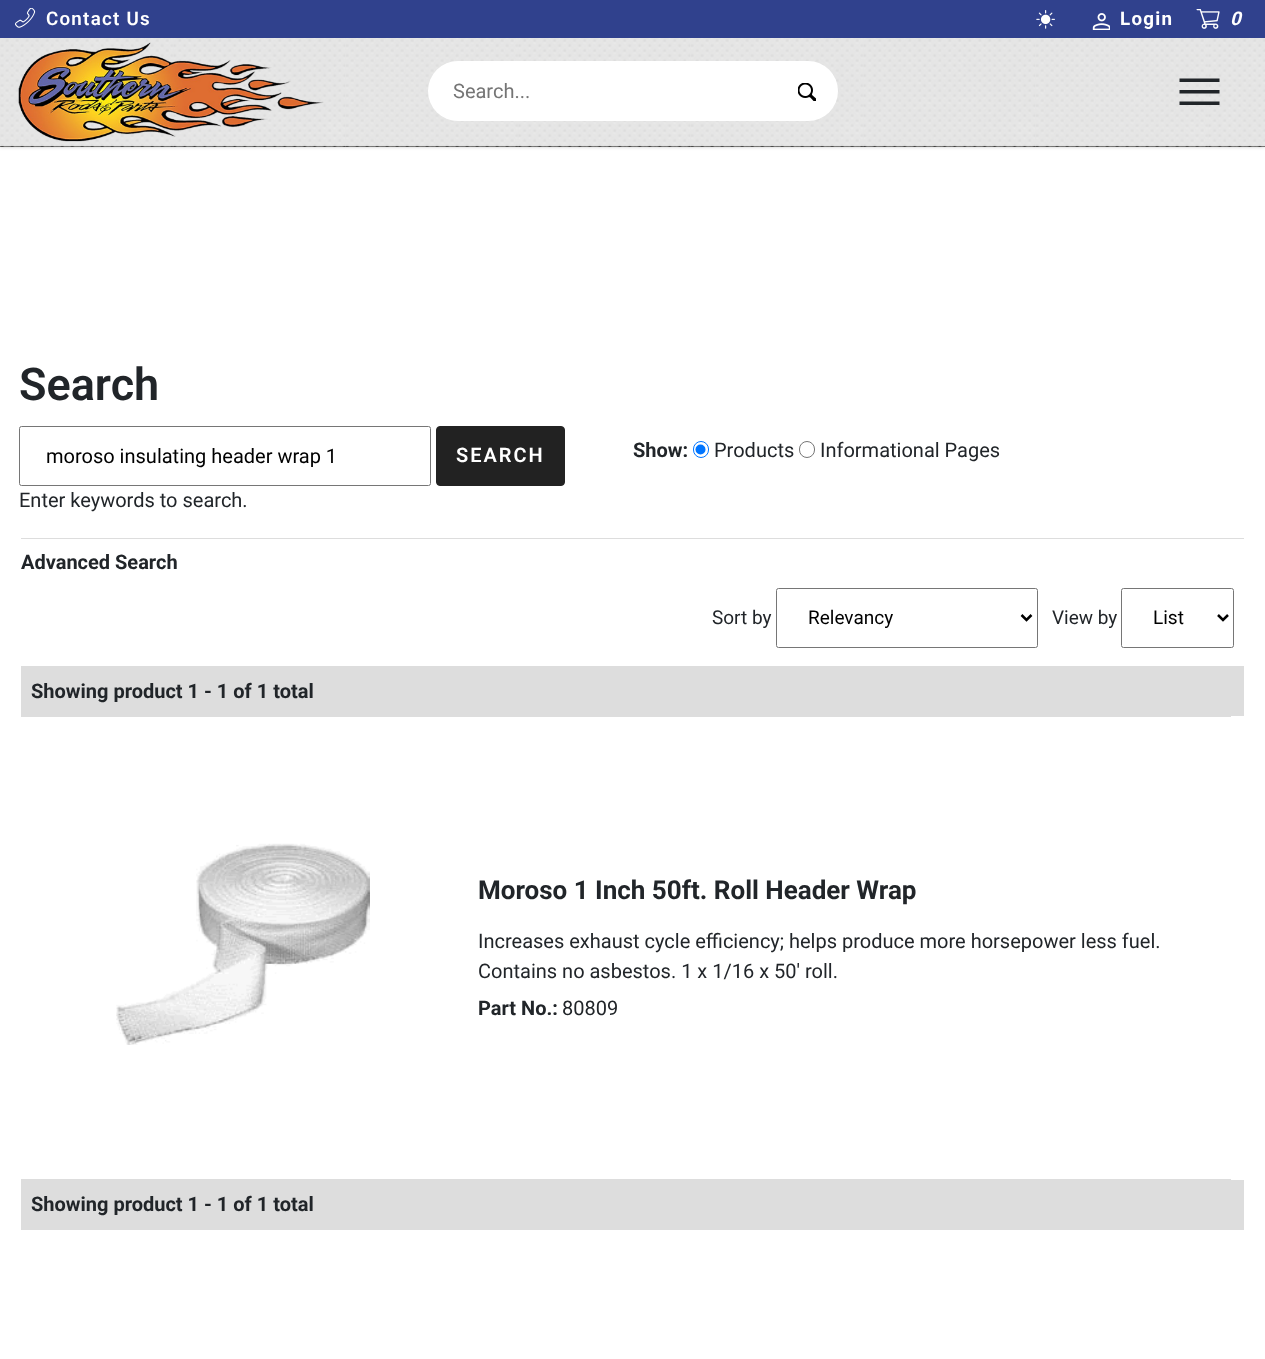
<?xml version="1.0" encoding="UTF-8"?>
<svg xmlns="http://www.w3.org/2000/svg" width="1265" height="1359">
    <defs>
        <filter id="blur1" x="-50%" y="-200%" width="200%" height="500%"><feGaussianBlur stdDeviation="2"/></filter>
    </defs>
    <rect width="100%" height="100%" fill="#FFFFFF"/>
    <rect x="0" y="0" width="1265" height="146" fill="#000000" fill-opacity="0.33" filter="url(#blur1)"/>
    <rect x="0" y="0" width="1265" height="38" fill="#30418D"/>
    <image x="15" y="8" width="21" height="20" href="img_01.png"/>
    <text x="46" y="25" font-family="Roboto" font-size="18.75" font-weight="600" letter-spacing="1.25" fill="#FFFFFF">Contact Us</text>
    <image x="1036" y="10" width="19" height="19" href="img_02.png"/>
    <image x="1092" y="13" width="18" height="17" href="img_03.png"/>
    <text x="1120" y="25" font-family="Roboto" font-size="18.75" font-weight="700" letter-spacing="1.25" fill="#FFFFFF">Login</text>
    <image x="1196" y="9" width="24" height="20" href="img_04.png"/>
    <text x="1230" y="25" font-family="Roboto" font-size="18.75" font-weight="700" font-style="italic" letter-spacing="1.25" fill="#FFFFFF">0</text>
    <image x="0" y="38" width="1265" height="109" href="img_05.png"/>
    <image x="18" y="42" width="306" height="100" href="img_06.png"/>
    <rect x="428" y="61" width="410" height="60" rx="30" fill="#FFFFFF"/>
    <text x="453" y="98" font-family="Roboto" font-size="20" fill="#757575">Search...</text>
    <image x="798" y="83" width="18" height="18" href="img_07.png"/>
    <path d="M 1179.5 105 V 101.5 H 1219.5 V 105 Z M 1179.5 93.5 V 90 H 1219.5 V 93.5 Z M 1179.5 82 V 78.5 H 1219.5 V 82 Z" fill="#212529"/>
    <text x="19" y="400" font-family="Roboto" font-size="45" font-weight="600" fill="#212529">Search</text>
    <rect x="19.5" y="426.5" width="411" height="59" rx="2" fill="none" stroke="#767676"/>
    <text x="46" y="463" font-family="Roboto" font-size="20" fill="#000000">moroso insulating header wrap 1</text>
    <rect x="436.5" y="426.5" width="128" height="59" rx="3.5" fill="#222222" stroke="#222222"/>
    <text x="456" y="462" font-family="Roboto" font-size="20" font-weight="600" letter-spacing="2" fill="#FFFFFF">SEARCH</text>
    <text x="19" y="507" font-family="Roboto" font-size="20" fill="#212529">Enter keywords to search.</text>
    <text x="633" y="457" font-family="Roboto" font-size="20" font-weight="700" fill="#212529">Show:</text>
    <rect x="693.5" y="441.5" width="15" height="16" rx="7.5" fill="none" stroke="#0075FF"/>
    <circle cx="700.5" cy="449.5" r="5" fill="#0075FF"/>
    <text x="714" y="457" font-family="Roboto" font-size="20" fill="#212529">Products</text>
    <rect x="799.5" y="441.5" width="15" height="16" rx="7.5" fill="none" stroke="#767676"/>
    <text x="820" y="457" font-family="Roboto" font-size="20" fill="#212529">Informational Pages</text>
    <rect x="21" y="538" width="1223" height="1" fill="#DDDDDD"/>
    <text x="21" y="569" font-family="Roboto" font-size="20" font-weight="700" fill="#212529">Advanced Search</text>
    <text x="712" y="624" font-family="Roboto" font-size="19" fill="#212529">Sort by</text>
    <rect x="776.5" y="588.5" width="261" height="59" rx="2" fill="none" stroke="#767676"/>
    <path d="M 1021.5 615 L 1026.5 620 L 1031.5 615" fill="none" stroke="#000000" stroke-width="2.5"/>
    <text x="808" y="624" font-family="Roboto" font-size="19" fill="#000000">Relevancy</text>
    <text x="1052" y="624" font-family="Roboto" font-size="19" fill="#212529">View by</text>
    <rect x="1121.5" y="588.5" width="112" height="59" rx="2" fill="none" stroke="#767676"/>
    <path d="M 1218 615 L 1223 620 L 1228 615" fill="none" stroke="#000000" stroke-width="2.5"/>
    <text x="1153" y="624" font-family="Roboto" font-size="19" fill="#000000">List</text>
    <rect x="21" y="666" width="1223" height="50" fill="#DDDDDD"/>
    <text x="31" y="698" font-family="Roboto" font-size="20" font-weight="700" fill="#212529">Showing product 1 - 1 of 1 total</text>
    <rect x="21" y="716" width="1210" height="1" fill="#DDDDDD"/>
    <rect x="21" y="1179" width="1210" height="1" fill="#DDDDDD"/>
    <image x="116" y="843" width="254" height="202" href="img_08.png"/>
    <text x="478" y="899" font-family="Roboto" font-size="26" font-weight="700" fill="#212529">Moroso 1 Inch 50ft. Roll Header Wrap</text>
    <text font-family="Roboto" font-size="20" fill="#212529">
        <tspan x="478" y="948">Increases exhaust cycle efficiency; helps produce more horsepower less fuel.</tspan>
        <tspan x="478" y="978">Contains no asbestos. 1 x 1/16 x 50' roll.</tspan>
    </text>
    <text x="478" y="1015" font-family="Roboto" font-size="20" font-weight="700" fill="#212529">Part No.:</text>
    <text x="562" y="1015" font-family="Roboto" font-size="20" fill="#212529">80809</text>
    <rect x="21" y="1180" width="1223" height="50" fill="#DDDDDD"/>
    <text x="31" y="1211" font-family="Roboto" font-size="20" font-weight="700" fill="#212529">Showing product 1 - 1 of 1 total</text>
</svg>
